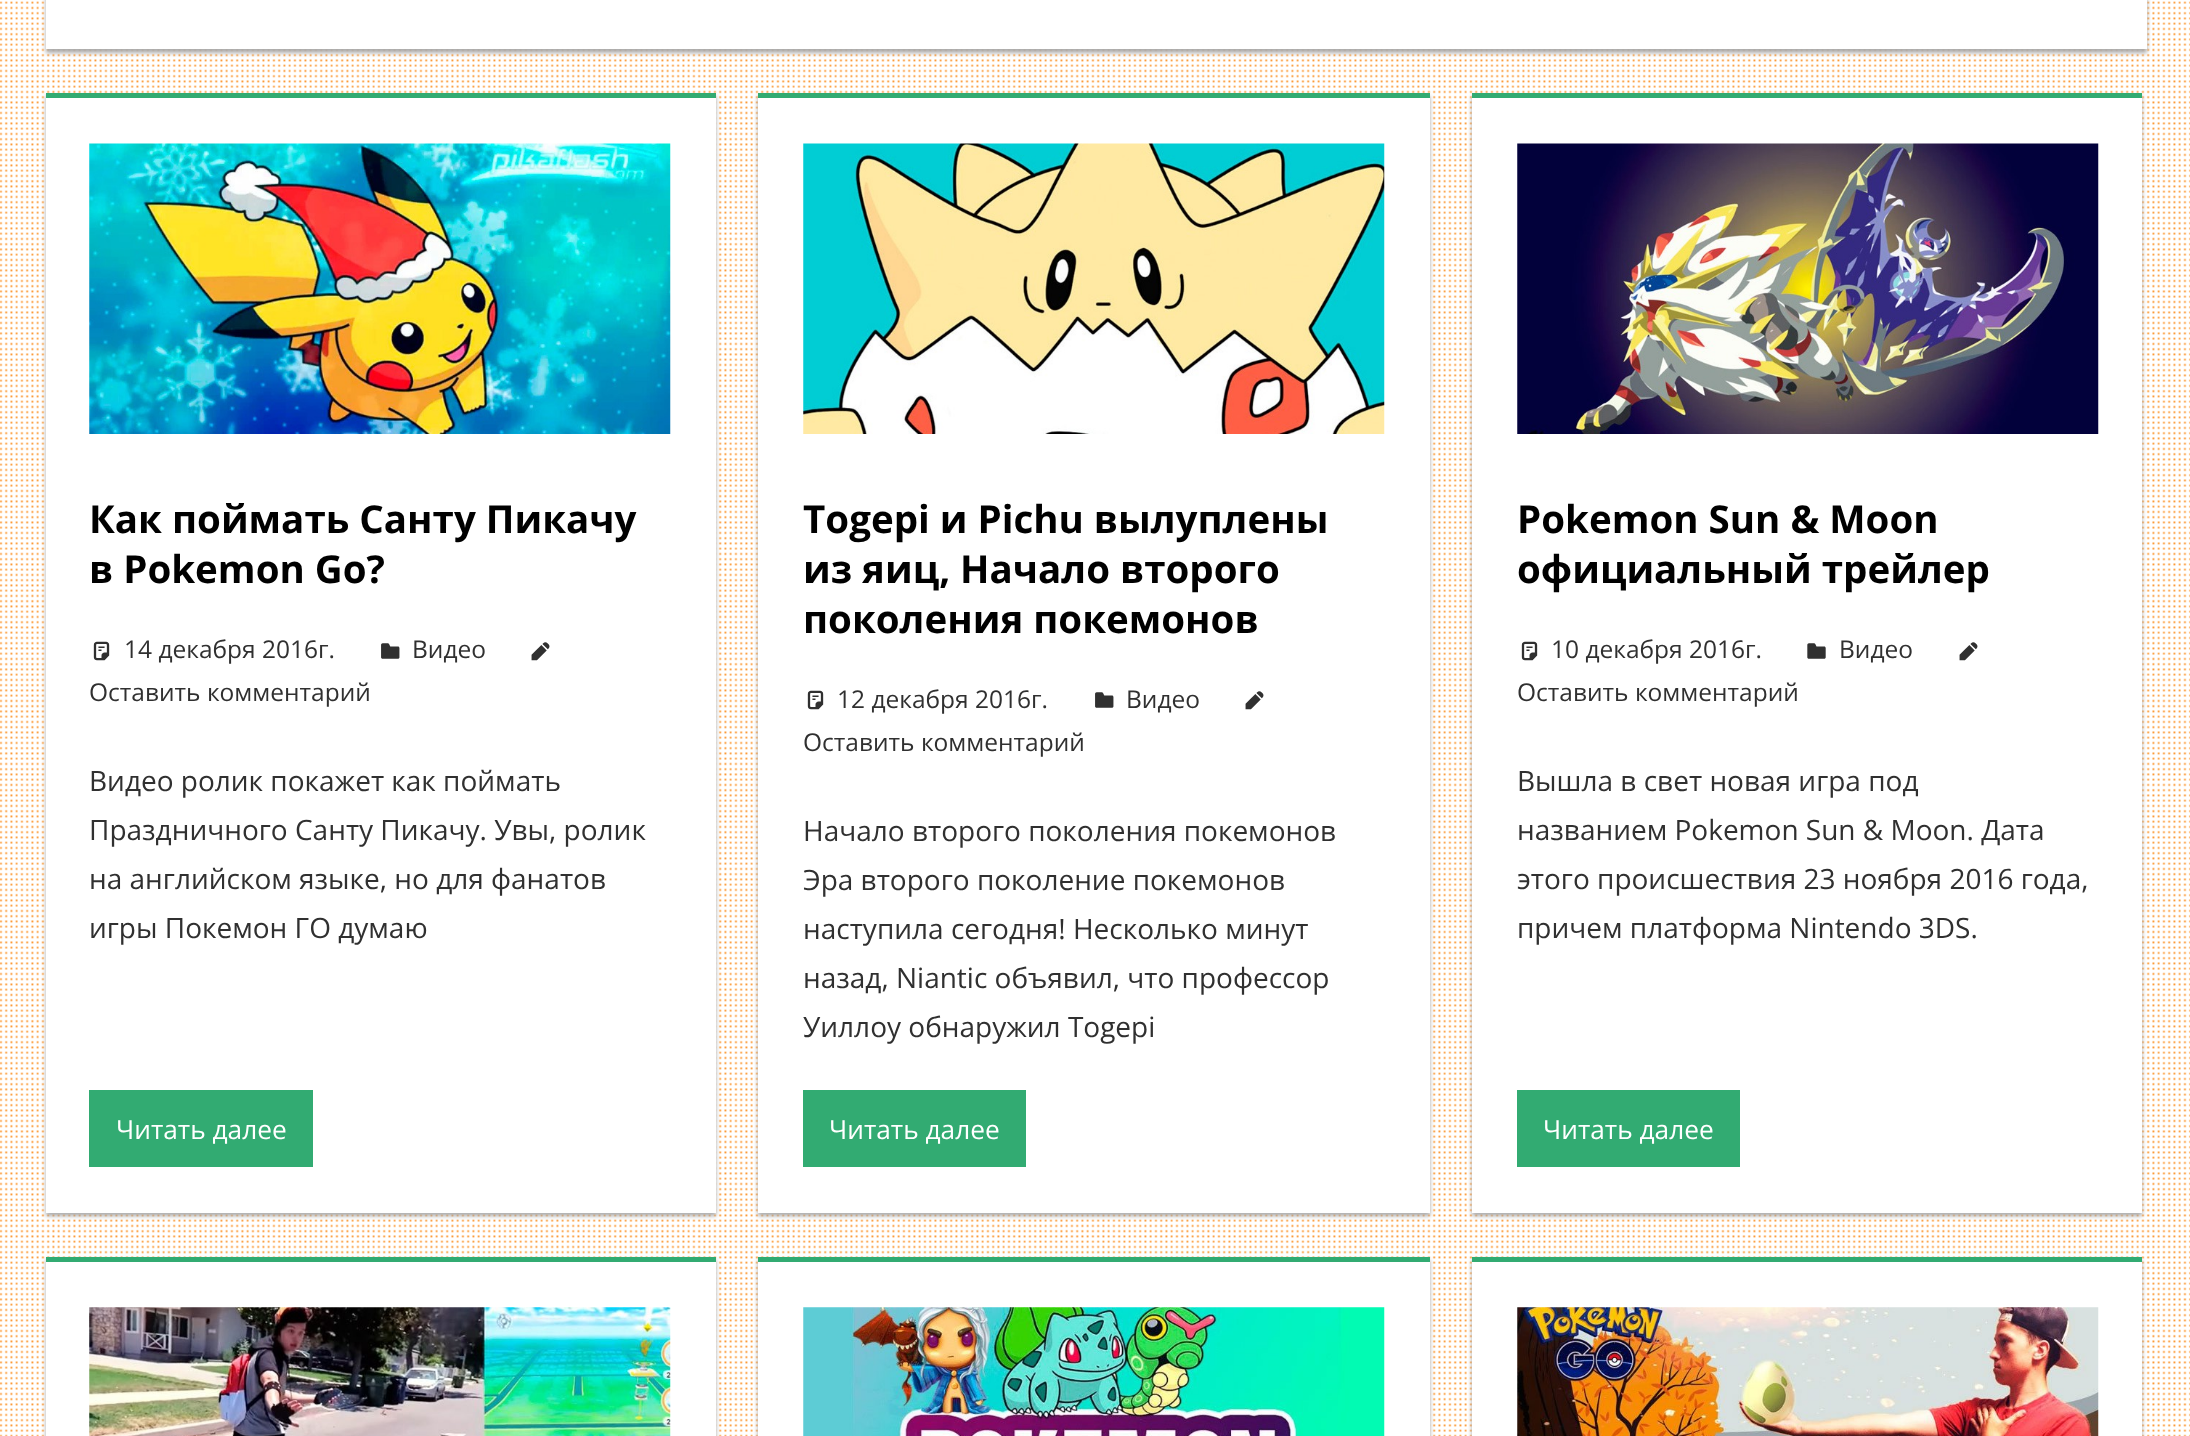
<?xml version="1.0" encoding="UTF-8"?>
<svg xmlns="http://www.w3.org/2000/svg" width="2190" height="1436">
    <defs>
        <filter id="blur1" x="-50%" y="-200%" width="200%" height="500%"><feGaussianBlur stdDeviation="2"/></filter>
    </defs>
    <rect width="100%" height="100%" fill="#FFFFFF"/>
    <image x="0" y="1" width="2190" height="1435" href="img_01.png"/>
    <rect x="46" y="-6" width="2101" height="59" fill="#AAAAAA" filter="url(#blur1)"/>
    <rect x="46" y="0" width="2101" height="49" fill="#FFFFFF"/>
    <rect x="46" y="96" width="670" height="1120" fill="#AAAAAA" filter="url(#blur1)"/>
    <rect x="46" y="98" width="670" height="1115" fill="#FFFFFF"/>
    <rect x="46" y="93" width="670" height="5" fill="#32AB72"/>
    <image x="89" y="143" width="582" height="291" href="img_02.png"/>
    <text font-family="Open Sans" font-size="38.5" font-weight="700" fill="#000000">
        <tspan x="89" y="533">Как поймать Санту Пикачу</tspan>
        <tspan x="89" y="583">в Pokemon Go?</tspan>
    </text>
    <image x="93" y="641" width="17" height="20" href="img_03.png"/>
    <text x="124" y="658" font-family="Open Sans" font-size="24.5" fill="#303030">14 декабря 2016г.</text>
    <image x="381" y="643" width="19" height="16" href="img_04.png"/>
    <text x="412" y="658" font-family="Open Sans" font-size="24.5" fill="#303030">Видео</text>
    <image x="531" y="642" width="19" height="19" href="img_05.png"/>
    <text x="89" y="701" font-family="Open Sans" font-size="24.5" fill="#303030">Оставить комментарий</text>
    <text font-family="Open Sans" font-size="28" fill="#303030">
        <tspan x="89" y="791">Видео ролик покажет как поймать</tspan>
        <tspan x="89" y="840">Праздничного Санту Пикачу. Увы, ролик</tspan>
        <tspan x="89" y="889">на английском языке, но для фанатов</tspan>
        <tspan x="89" y="938">игры Покемон ГО думаю</tspan>
    </text>
    <rect x="89" y="1090" width="224" height="77" fill="#32AB72"/>
    <text x="116" y="1139" font-family="Open Sans" font-size="26.25" fill="#FFFFFF">Читать далее</text>
    <rect x="758" y="96" width="672" height="1120" fill="#AAAAAA" filter="url(#blur1)"/>
    <rect x="758" y="98" width="672" height="1115" fill="#FFFFFF"/>
    <rect x="758" y="93" width="672" height="5" fill="#32AB72"/>
    <image x="803" y="143" width="582" height="291" href="img_06.png"/>
    <text font-family="Open Sans" font-size="38.5" font-weight="700" fill="#000000">
        <tspan x="803" y="533">Togepi и Pichu вылуплены</tspan>
        <tspan x="803" y="583">из яиц, Начало второго</tspan>
        <tspan x="803" y="633">поколения покемонов</tspan>
    </text>
    <image x="807" y="690" width="17" height="20" href="img_03.png"/>
    <text x="837" y="708" font-family="Open Sans" font-size="24.5" fill="#303030">12 декабря 2016г.</text>
    <image x="1095" y="692" width="19" height="16" href="img_04.png"/>
    <text x="1126" y="708" font-family="Open Sans" font-size="24.5" fill="#303030">Видео</text>
    <image x="1245" y="691" width="19" height="19" href="img_05.png"/>
    <text x="803" y="751" font-family="Open Sans" font-size="24.5" fill="#303030">Оставить комментарий</text>
    <text font-family="Open Sans" font-size="28" fill="#303030">
        <tspan x="803" y="841">Начало второго поколения покемонов</tspan>
        <tspan x="803" y="890">Эра второго поколение покемонов</tspan>
        <tspan x="803" y="939">наступила сегодня! Несколько минут</tspan>
        <tspan x="803" y="988">назад, Niantic объявил, что профессор</tspan>
        <tspan x="803" y="1037">Уиллоу обнаружил Togepi</tspan>
    </text>
    <rect x="803" y="1090" width="223" height="77" fill="#32AB72"/>
    <text x="829" y="1139" font-family="Open Sans" font-size="26.25" fill="#FFFFFF">Читать далее</text>
    <rect x="1472" y="96" width="670" height="1120" fill="#AAAAAA" filter="url(#blur1)"/>
    <rect x="1472" y="98" width="670" height="1115" fill="#FFFFFF"/>
    <rect x="1472" y="93" width="670" height="5" fill="#32AB72"/>
    <image x="1517" y="143" width="582" height="291" href="img_07.png"/>
    <text font-family="Open Sans" font-size="38.5" font-weight="700" fill="#000000">
        <tspan x="1517" y="533">Pokemon Sun &amp; Moon</tspan>
        <tspan x="1517" y="583">официальный трейлер</tspan>
    </text>
    <image x="1521" y="641" width="17" height="20" href="img_08.png"/>
    <text x="1551" y="658" font-family="Open Sans" font-size="24.5" fill="#303030">10 декабря 2016г.</text>
    <image x="1807" y="643" width="19" height="16" href="img_09.png"/>
    <text x="1839" y="658" font-family="Open Sans" font-size="24.5" fill="#303030">Видео</text>
    <image x="1959" y="642" width="19" height="19" href="img_05.png"/>
    <text x="1517" y="701" font-family="Open Sans" font-size="24.5" fill="#303030">Оставить комментарий</text>
    <text font-family="Open Sans" font-size="28" fill="#303030">
        <tspan x="1517" y="791">Вышла в свет новая игра под</tspan>
        <tspan x="1517" y="840">названием Pokemon Sun &amp; Moon. Дата</tspan>
        <tspan x="1517" y="889">этого происшествия 23 ноября 2016 года,</tspan>
        <tspan x="1517" y="938">причем платформа Nintendo 3DS.</tspan>
    </text>
    <rect x="1517" y="1090" width="223" height="77" fill="#32AB72"/>
    <text x="1543" y="1139" font-family="Open Sans" font-size="26.25" fill="#FFFFFF">Читать далее</text>
    <rect x="46" y="1260" width="670" height="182" fill="#AAAAAA" filter="url(#blur1)"/>
    <rect x="46" y="1262" width="670" height="174" fill="#FFFFFF"/>
    <rect x="46" y="1257" width="670" height="5" fill="#32AB72"/>
    <image x="89" y="1307" width="582" height="129" href="img_10.png"/>
    <rect x="758" y="1260" width="672" height="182" fill="#AAAAAA" filter="url(#blur1)"/>
    <rect x="758" y="1262" width="672" height="174" fill="#FFFFFF"/>
    <rect x="758" y="1257" width="672" height="5" fill="#32AB72"/>
    <image x="803" y="1307" width="582" height="129" href="img_11.png"/>
    <rect x="1472" y="1260" width="670" height="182" fill="#AAAAAA" filter="url(#blur1)"/>
    <rect x="1472" y="1262" width="670" height="174" fill="#FFFFFF"/>
    <rect x="1472" y="1257" width="670" height="5" fill="#32AB72"/>
    <image x="1517" y="1307" width="582" height="129" href="img_12.png"/>
</svg>
